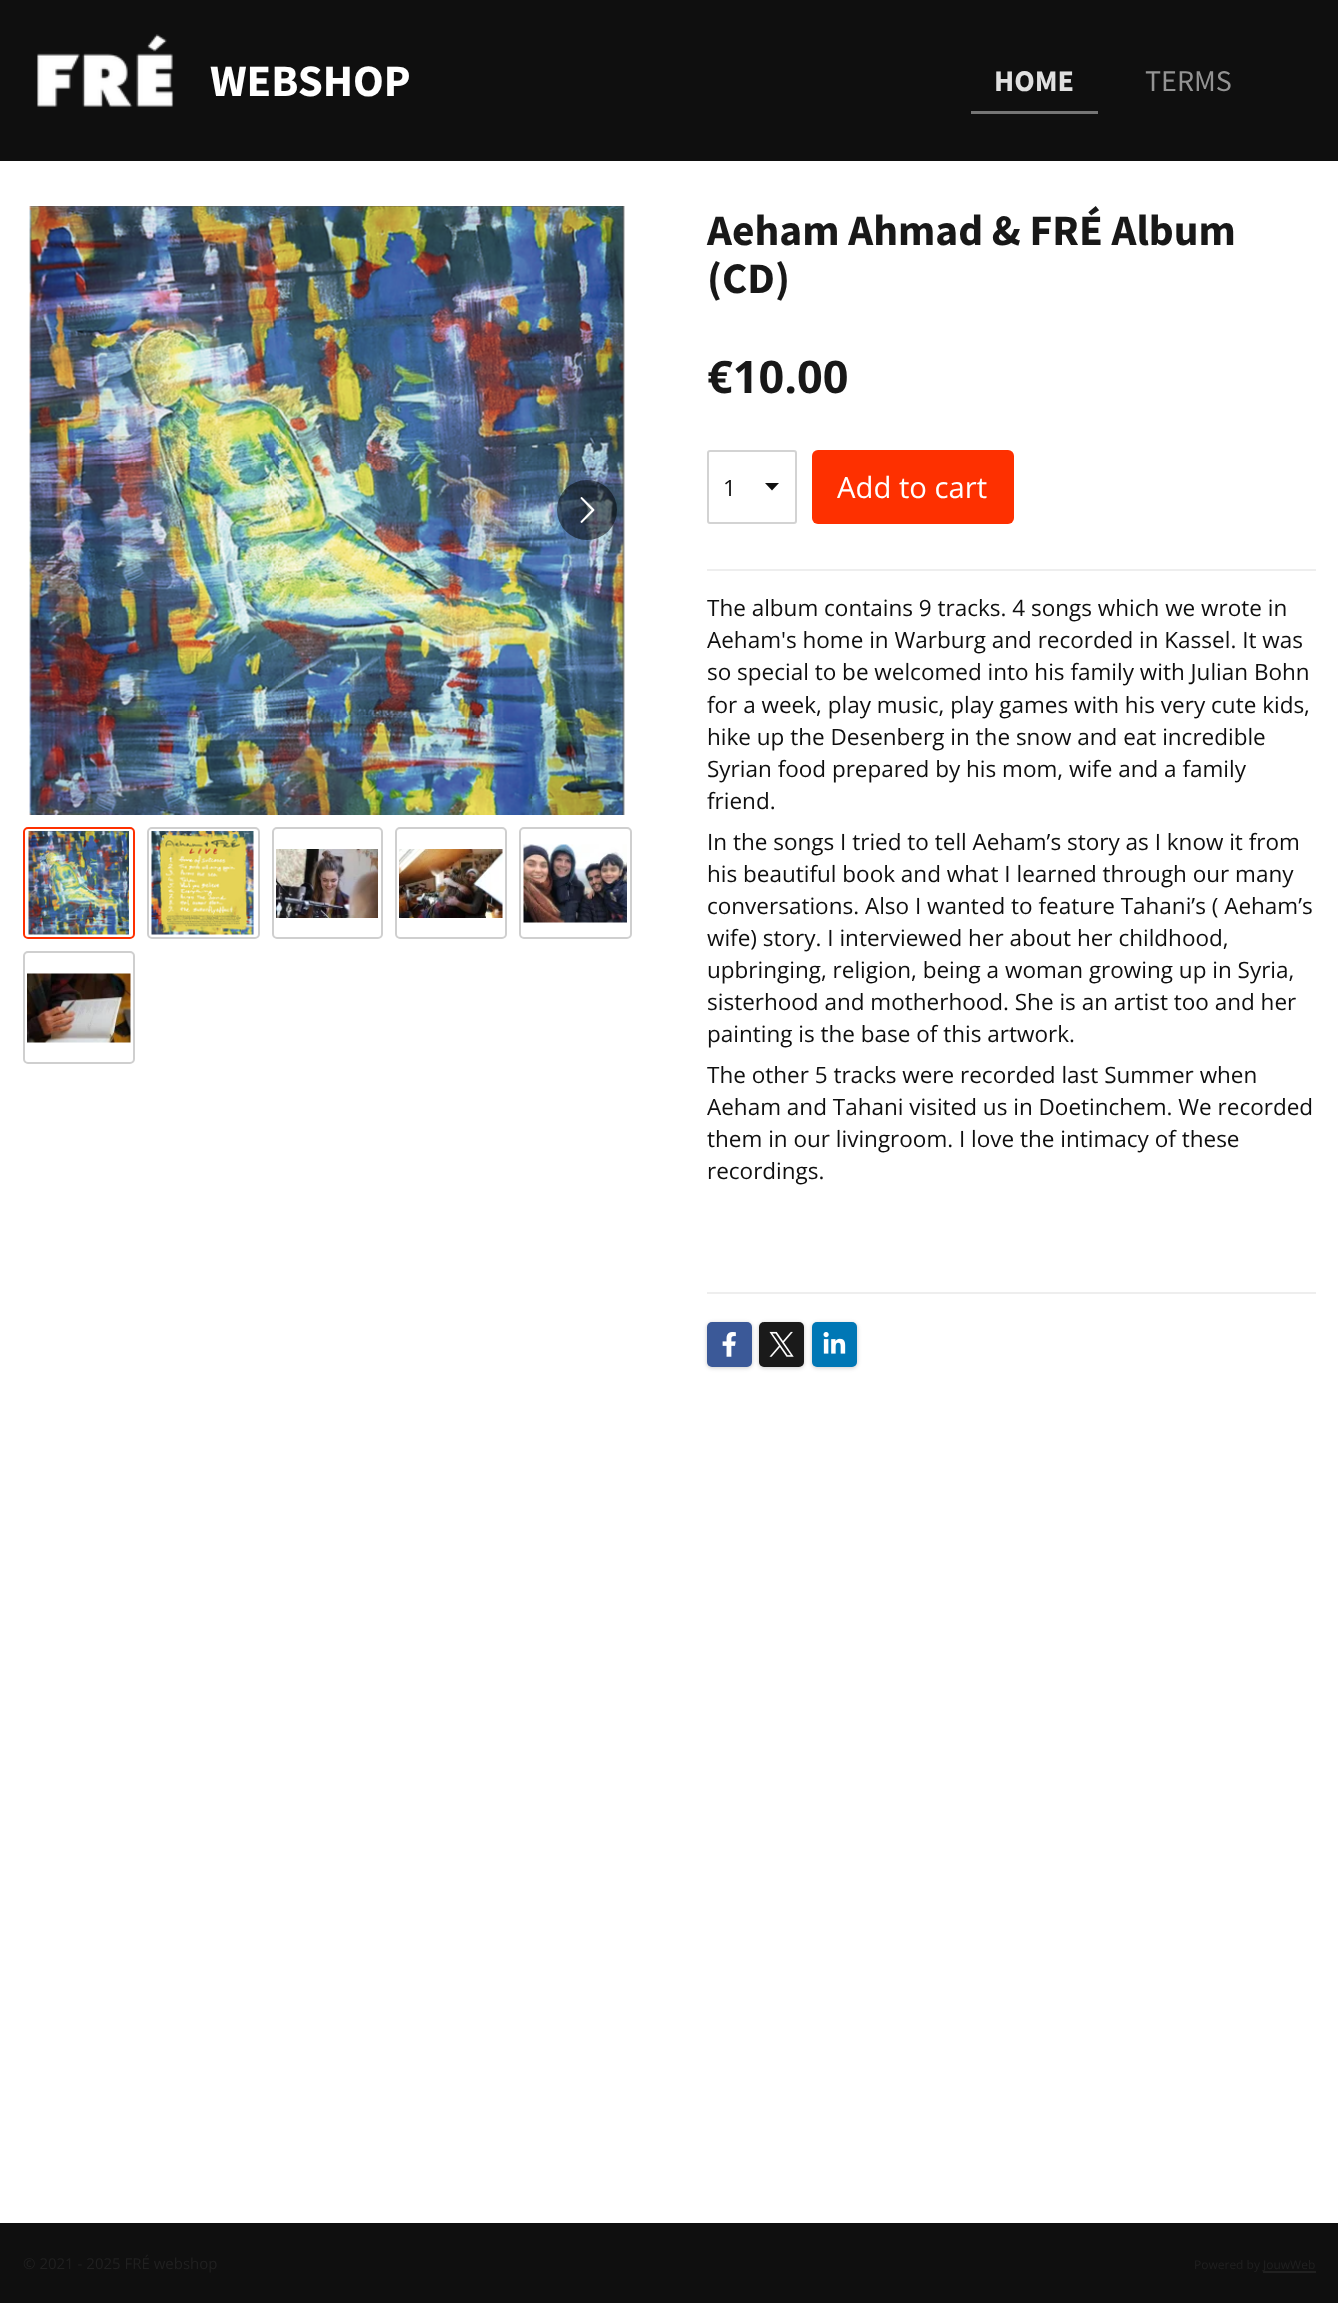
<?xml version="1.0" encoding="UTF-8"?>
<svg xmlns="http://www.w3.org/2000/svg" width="1338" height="2303">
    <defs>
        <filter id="blur1" x="-50%" y="-200%" width="200%" height="500%"><feGaussianBlur stdDeviation="2"/></filter>
    </defs>
    <rect width="100%" height="100%" fill="#0F0F0F"/>
    <image x="37" y="34" width="137" height="73" href="img_01.png"/>
    <text x="210" y="96" font-family="Source Sans Pro" font-size="45" font-weight="700" fill="#FFFFFF">WEBSHOP</text>
    <rect x="971" y="111" width="127" height="3" fill="#757575"/>
    <text x="994" y="91" font-family="Source Sans Pro" font-size="30" font-weight="700" fill="#E0E0E0">HOME</text>
    <text x="1145" y="91" font-family="Source Sans Pro" font-size="30" fill="#939393">TERMS</text>
    <rect x="0" y="161" width="1338" height="2062" fill="#FFFFFF"/>
    <image x="29" y="206" width="596" height="609" href="img_02.png"/>
    <circle cx="587" cy="510" r="30" fill="#000000" fill-opacity="0.5"/>
    <image x="580" y="497" width="15" height="26" href="img_03.png"/>
    <rect x="24" y="828" width="110" height="110" rx="4" fill="none" stroke="#FE3000" stroke-width="2"/>
    <image x="28" y="831" width="101" height="104" href="img_04.png"/>
    <rect x="148" y="828" width="111" height="110" rx="4" fill="none" stroke="#CFCFCF" stroke-width="2"/>
    <image x="151" y="831" width="103" height="104" href="img_05.png"/>
    <rect x="273" y="828" width="109" height="110" rx="4" fill="none" stroke="#CFCFCF" stroke-width="2"/>
    <image x="276" y="849" width="102" height="69" href="img_06.png"/>
    <rect x="396" y="828" width="110" height="110" rx="4" fill="none" stroke="#CFCFCF" stroke-width="2"/>
    <image x="399" y="849" width="104" height="69" href="img_07.png"/>
    <rect x="520" y="828" width="111" height="110" rx="4" fill="none" stroke="#CFCFCF" stroke-width="2"/>
    <image x="523" y="844" width="104" height="79" href="img_08.png"/>
    <rect x="24" y="952" width="110" height="111" rx="4" fill="none" stroke="#CFCFCF" stroke-width="2"/>
    <image x="27" y="973" width="104" height="70" href="img_09.png"/>
    <text font-family="Source Sans Pro" font-size="43.5" font-weight="700" fill="#181818">
        <tspan x="707" y="245">Aeham Ahmad &amp; FRÉ Album</tspan>
        <tspan x="707" y="293">(CD)</tspan>
    </text>
    <text x="707" y="393" font-family="Open Sans" font-size="45" font-weight="700" fill="#181818">€10.00</text>
    <path d="M 772 490.5 L 765 483 H 779 Z" fill="#0F0F0F"/>
    <rect x="708" y="451" width="88" height="72" rx="2" fill="none" stroke="#D3D3D3" stroke-width="2"/>
    <text x="723" y="496" font-family="Open Sans" font-size="22.5" fill="#0F0F0F">1</text>
    <rect x="812" y="450" width="202" height="74" rx="6" fill="#FE3000"/>
    <text x="837" y="498" font-family="Open Sans" font-size="29.25" fill="#FFFFFF">Add to cart</text>
    <rect x="707" y="569" width="609" height="2" fill="#EEEEEE"/>
    <text font-family="Open Sans" font-size="22.5" fill="#0F0F0F">
        <tspan x="707" y="616">The album contains 9 tracks. 4 songs which we wrote in</tspan>
        <tspan x="707" y="648">Aeham's home in Warburg and recorded in Kassel. It was</tspan>
        <tspan x="707" y="680">so special to be welcomed into his family with Julian Bohn</tspan>
        <tspan x="707" y="713">for a week, play music, play games with his very cute kids,</tspan>
        <tspan x="707" y="745">hike up the Desenberg in the snow and eat incredible</tspan>
        <tspan x="707" y="777">Syrian food prepared by his mom, wife and a family</tspan>
        <tspan x="707" y="809">friend.</tspan>
        <tspan x="707" y="850">In the songs I tried to tell Aeham’s story as I know it from</tspan>
        <tspan x="707" y="882">his beautiful book and what I learned through our many</tspan>
        <tspan x="707" y="914">conversations. Also I wanted to feature Tahani’s ( Aeham’s</tspan>
        <tspan x="707" y="946">wife) story. I interviewed her about her childhood,</tspan>
        <tspan x="707" y="978">upbringing, religion, being a woman growing up in Syria,</tspan>
        <tspan x="707" y="1010">sisterhood and motherhood. She is an artist too and her</tspan>
        <tspan x="707" y="1042">painting is the base of this artwork.</tspan>
        <tspan x="707" y="1083">The other 5 tracks were recorded last Summer when</tspan>
        <tspan x="707" y="1115">Aeham and Tahani visited us in Doetinchem. We recorded</tspan>
        <tspan x="707" y="1147">them in our livingroom. I love the intimacy of these</tspan>
        <tspan x="707" y="1179">recordings.</tspan>
    </text>
    <rect x="707" y="1292" width="609" height="2" fill="#EEEEEE"/>
    <rect x="707" y="1323" width="45" height="45" rx="5" fill="#000000" fill-opacity="0.2" filter="url(#blur1)"/>
    <rect x="707" y="1322" width="45" height="45" rx="5" fill="#3B5998"/>
    <image x="722" y="1332" width="14" height="25" href="img_10.png"/>
    <rect x="759" y="1323" width="45" height="45" rx="5" fill="#000000" fill-opacity="0.2" filter="url(#blur1)"/>
    <rect x="759" y="1322" width="45" height="45" rx="5" fill="#1A1A1A"/>
    <image x="769" y="1331" width="25" height="26" href="img_11.png"/>
    <rect x="812" y="1323" width="45" height="45" rx="5" fill="#000000" fill-opacity="0.2" filter="url(#blur1)"/>
    <rect x="812" y="1322" width="45" height="45" rx="5" fill="#0077B5"/>
    <image x="823" y="1332" width="23" height="22" href="img_12.png"/>
    <text x="23" y="2269" font-family="Open Sans" font-size="15" fill="#202020">© 2021 - 2025 FRÉ webshop</text>
    <text x="1194" y="2269" font-family="Open Sans" font-size="12" fill="#202020">Powered by</text>
    <rect x="1263" y="2271" width="53" height="2" fill="#202020"/>
    <text x="1263" y="2269" font-family="Open Sans" font-size="12" fill="#202020">JouwWeb</text>
</svg>
